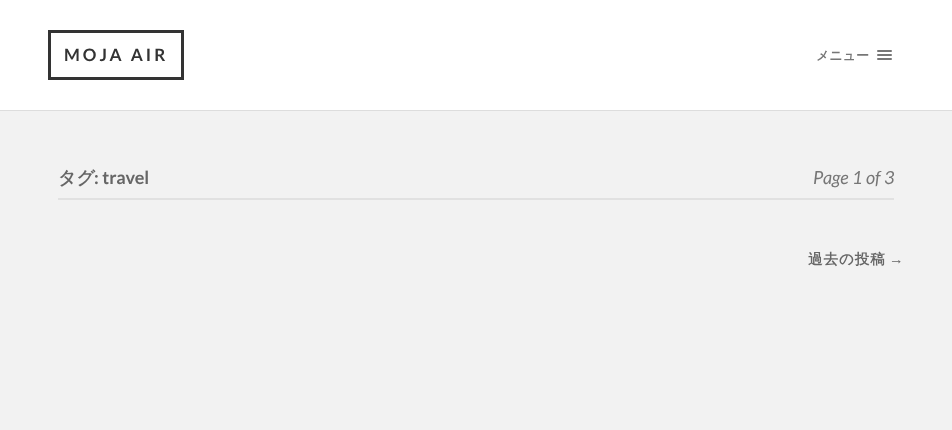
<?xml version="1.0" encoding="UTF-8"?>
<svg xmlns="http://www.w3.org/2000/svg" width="952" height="430">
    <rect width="100%" height="100%" fill="#F2F2F2"/>
    <rect x="0" y="0" width="952" height="110" fill="#FFFFFF"/>
    <rect x="0" y="110" width="952" height="1" fill="#DDDDDD"/>
    <rect x="49.5" y="31.5" width="133" height="47" fill="none" stroke="#333333" stroke-width="3"/>
    <text x="64" y="61" font-family="Lato" font-size="17" font-weight="700" letter-spacing="3" fill="#333333">MOJA AIR</text>
    <text x="816" y="60" font-family="WenQuanYi Zen Hei" font-size="13" font-weight="700" fill="#767676">メニュー</text>
    <rect x="877" y="50" width="15" height="2" rx="1" fill="#767676"/>
    <rect x="877" y="54" width="15" height="2" rx="1" fill="#767676"/>
    <rect x="877" y="58" width="15" height="2" rx="1" fill="#767676"/>
    <rect x="58" y="198" width="836" height="2" fill="#E1E1E1"/>
    <text x="58" y="184" font-family="WenQuanYi Zen Hei" font-size="18" font-weight="700" fill="#666666">タグ</text>
    <text x="94" y="184" font-family="Lato" font-size="18" font-weight="700" fill="#666666">: travel</text>
    <text x="813" y="184" font-family="Lato" font-size="18" font-style="italic" fill="#767676">Page 1 of 3</text>
    <text x="808" y="264" font-family="WenQuanYi Zen Hei" font-size="14.5" font-weight="700" letter-spacing="1" fill="#666666">過去の投稿</text>
    <text x="889" y="264" font-family="Liberation Sans" font-size="14.5" font-weight="700" letter-spacing="1" fill="#666666">→</text>
</svg>
